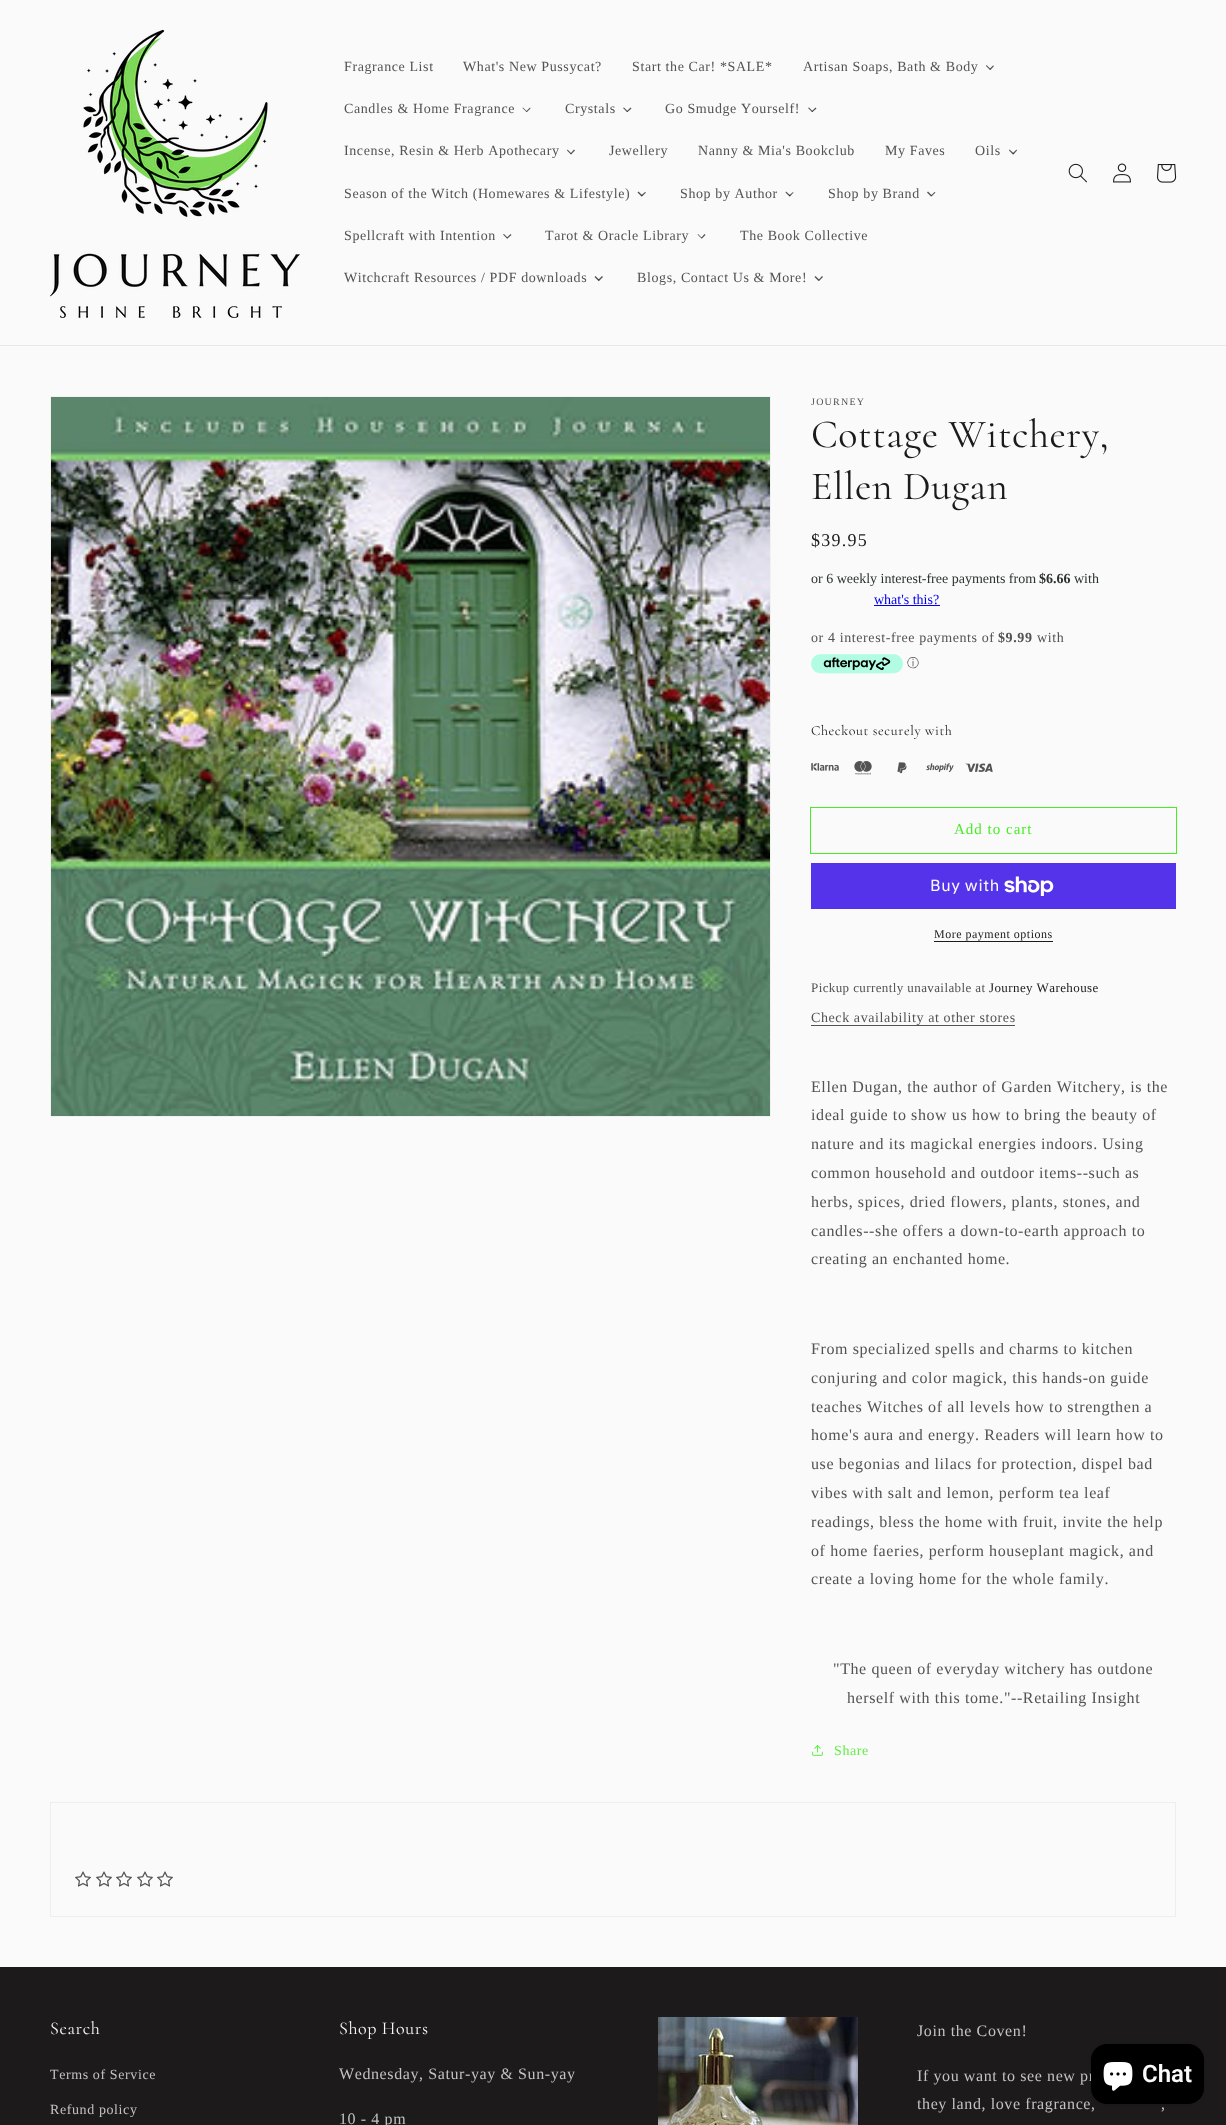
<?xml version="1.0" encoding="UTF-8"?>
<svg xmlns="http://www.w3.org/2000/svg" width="1226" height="2125">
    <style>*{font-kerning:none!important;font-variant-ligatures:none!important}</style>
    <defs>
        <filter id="blur1" x="-50%" y="-200%" width="200%" height="500%"><feGaussianBlur stdDeviation="2.5"/></filter>
    </defs>
    <rect width="100%" height="100%" fill="#FAFAFA"/>
    <rect x="0" y="345" width="1226" height="1" fill="#E8E8E8"/>
    <image x="50" y="29" width="250" height="289" href="img_01.png"/>
    <text x="344" y="71" font-family="Liberation Serif" font-size="14" letter-spacing="0.6" fill="#545252">Fragrance List</text>
    <text x="463" y="71" font-family="Liberation Serif" font-size="14" letter-spacing="0.6" fill="#545252">What's New Pussycat?</text>
    <text x="632" y="71" font-family="Liberation Serif" font-size="14" letter-spacing="0.6" fill="#545252">Start the Car! *SALE*</text>
    <text x="803" y="71" font-family="Liberation Serif" font-size="14" letter-spacing="0.6" fill="#545252">Artisan Soaps, Bath &amp; Body</text>
    <path d="M 993 65.5 L 994 66 L 990.5 70 L 989.5 69 Z" fill="#545252"/>
    <path d="M 986.5 65 L 990.5 69 L 990 70 L 986 66 Z" fill="#1C1A1A" fill-opacity="0.75"/>
    <text x="344" y="113" font-family="Liberation Serif" font-size="14" letter-spacing="0.6" fill="#545252">Candles &amp; Home Fragrance</text>
    <path d="M 530 107.5 L 530.5 108.5 L 527 112 L 526 111.5 Z" fill="#545252"/>
    <path d="M 523 107.5 L 527 111.5 L 526.5 112 L 522.5 108 Z" fill="#1C1A1A" fill-opacity="0.75"/>
    <text x="565" y="113" font-family="Liberation Serif" font-size="14" letter-spacing="0.6" fill="#545252">Crystals</text>
    <path d="M 630.5 107.5 L 631.5 108.5 L 627.5 112 L 626.5 111.5 Z" fill="#545252"/>
    <path d="M 624 107.5 L 628 111.5 L 627 112 L 623 108 Z" fill="#1C1A1A" fill-opacity="0.75"/>
    <text x="665" y="113" font-family="Liberation Serif" font-size="14" letter-spacing="0.6" fill="#545252">Go Smudge Yourself!</text>
    <path d="M 815.5 107.5 L 816.5 108.5 L 812.5 112 L 811.5 111.5 Z" fill="#545252"/>
    <path d="M 809 107.5 L 813 111.5 L 812 112 L 808 108 Z" fill="#1C1A1A" fill-opacity="0.75"/>
    <text x="344" y="155" font-family="Liberation Serif" font-size="14" letter-spacing="0.6" fill="#545252">Incense, Resin &amp; Herb Apothecary</text>
    <path d="M 574 149.5 L 575 150.5 L 571 154.5 L 570.5 153.5 Z" fill="#545252"/>
    <path d="M 567.5 149.5 L 571.5 153.5 L 571 154.5 L 567 150.5 Z" fill="#1C1A1A" fill-opacity="0.75"/>
    <text x="609" y="155" font-family="Liberation Serif" font-size="14" letter-spacing="0.6" fill="#545252">Jewellery</text>
    <text x="698" y="155" font-family="Liberation Serif" font-size="14" letter-spacing="0.6" fill="#545252">Nanny &amp; Mia's Bookclub</text>
    <text x="885" y="155" font-family="Liberation Serif" font-size="14" letter-spacing="0.6" fill="#545252">My Faves</text>
    <text x="975" y="155" font-family="Liberation Serif" font-size="14" letter-spacing="0.6" fill="#545252">Oils</text>
    <path d="M 1016.5 149.5 L 1017 150.5 L 1013.5 154.5 L 1012.5 153.5 Z" fill="#545252"/>
    <path d="M 1009.5 149.5 L 1014 153.5 L 1013 154.5 L 1009 150.5 Z" fill="#1C1A1A" fill-opacity="0.75"/>
    <text x="344" y="198" font-family="Liberation Serif" font-size="14" letter-spacing="0.6" fill="#545252">Season of the Witch (Homewares &amp; Lifestyle)</text>
    <path d="M 645 192 L 646 192.5 L 642 196.5 L 641 195.5 Z" fill="#545252"/>
    <path d="M 638.5 191.5 L 642.5 195.5 L 641.5 196.5 L 637.5 192.5 Z" fill="#1C1A1A" fill-opacity="0.75"/>
    <text x="680" y="198" font-family="Liberation Serif" font-size="14" letter-spacing="0.6" fill="#545252">Shop by Author</text>
    <path d="M 793 192 L 793.5 192.5 L 790 196.5 L 789 195.5 Z" fill="#545252"/>
    <path d="M 786 191.5 L 790.5 195.5 L 789.5 196.5 L 785.5 192.5 Z" fill="#1C1A1A" fill-opacity="0.75"/>
    <text x="828" y="198" font-family="Liberation Serif" font-size="14" letter-spacing="0.6" fill="#545252">Shop by Brand</text>
    <path d="M 934.5 192 L 935.5 192.5 L 931.5 196.5 L 931 195.5 Z" fill="#545252"/>
    <path d="M 928 191.5 L 932 195.5 L 931 196.5 L 927 192.5 Z" fill="#1C1A1A" fill-opacity="0.75"/>
    <text x="344" y="240" font-family="Liberation Serif" font-size="14" letter-spacing="0.6" fill="#545252">Spellcraft with Intention</text>
    <path d="M 510.5 234 L 511.5 235 L 507.5 238.5 L 506.5 238 Z" fill="#545252"/>
    <path d="M 504 234 L 508 238 L 507 238.5 L 503 234.5 Z" fill="#1C1A1A" fill-opacity="0.75"/>
    <text x="545" y="240" font-family="Liberation Serif" font-size="14" letter-spacing="0.6" fill="#545252">Tarot &amp; Oracle Library</text>
    <path d="M 704.5 234 L 705.5 235 L 702 238.5 L 701 238 Z" fill="#545252"/>
    <path d="M 698 234 L 702 238 L 701.5 238.5 L 697.5 234.5 Z" fill="#1C1A1A" fill-opacity="0.75"/>
    <text x="740" y="240" font-family="Liberation Serif" font-size="14" letter-spacing="0.6" fill="#545252">The Book Collective</text>
    <text x="344" y="282" font-family="Liberation Serif" font-size="14" letter-spacing="0.6" fill="#545252">Witchcraft Resources / PDF downloads</text>
    <path d="M 602 276 L 603 277 L 599 281 L 598 280 Z" fill="#545252"/>
    <path d="M 595.5 276 L 599.5 280 L 598.5 281 L 594.5 277 Z" fill="#1C1A1A" fill-opacity="0.75"/>
    <text x="637" y="282" font-family="Liberation Serif" font-size="14" letter-spacing="0.6" fill="#545252">Blogs, Contact Us &amp; More!</text>
    <path d="M 822 276 L 823 277 L 819 281 L 818.5 280 Z" fill="#545252"/>
    <path d="M 815.5 276 L 819.5 280 L 818.5 281 L 814.5 277 Z" fill="#1C1A1A" fill-opacity="0.75"/>
    <image x="1068" y="163" width="19" height="20" href="img_02.png"/>
    <image x="1113" y="163" width="18" height="20" href="img_03.png"/>
    <image x="1157" y="164" width="20" height="19" href="img_04.png"/>
    <rect x="50.5" y="396.5" width="720" height="720" fill="none" stroke="#F1F1F1"/>
    <image x="51" y="397" width="719" height="719" href="img_05.png"/>
    <text x="811" y="405" font-family="Liberation Serif" font-size="10" letter-spacing="1.25" fill="#545252">JOURNEY</text>
    <text font-family="Cormorant" font-size="40" letter-spacing="0.6" fill="#1C1A1A">
        <tspan x="811" y="447">Cottage Witchery,</tspan>
        <tspan x="811" y="499">Ellen Dugan</tspan>
    </text>
    <text x="811" y="546" font-family="Liberation Serif" font-size="18" letter-spacing="1.25" fill="#1C1A1A">$39.95</text>
    <text x="811" y="583" font-family="Liberation Serif" font-size="14" fill="#2A332F">or 6 weekly interest-free payments from</text>
    <text x="1039" y="583" font-family="Liberation Serif" font-size="14" font-weight="700" fill="#2A332F">$6.66</text>
    <text x="1074" y="583" font-family="Liberation Serif" font-size="14" fill="#2A332F">with</text>
    <text x="874" y="604" font-family="Liberation Serif" font-size="14" fill="#0000EE">what's this?</text>
    <rect x="874" y="605" width="66" height="1" fill="#0000EE"/>
    <text x="811" y="642" font-family="Liberation Serif" font-size="14" letter-spacing="0.6" fill="#545252">or 4 interest-free payments of</text>
    <text x="998" y="642" font-family="Liberation Serif" font-size="14" font-weight="700" letter-spacing="0.6" fill="#545252">$9.99</text>
    <text x="1037" y="642" font-family="Liberation Serif" font-size="14" letter-spacing="0.6" fill="#545252">with</text>
    <image x="811" y="654" width="92" height="20" href="img_06.png"/>
    <text x="907" y="667" font-family="WenQuanYi Zen Hei" font-size="12" font-weight="500" fill="#545252">ⓘ</text>
    <text x="811" y="735" font-family="Cormorant" font-size="14" letter-spacing="0.6" fill="#1C1A1A">Checkout securely with</text>
    <image x="811" y="763" width="28" height="8" href="img_07.png"/>
    <image x="854" y="761" width="18" height="14" href="img_08.png"/>
    <image x="897" y="762" width="10" height="12" href="img_09.png"/>
    <image x="926" y="763" width="28" height="10" href="img_10.png"/>
    <image x="965" y="763" width="28" height="9" href="img_11.png"/>
    <rect x="810.5" y="807.5" width="366" height="46" fill="none" stroke="#47EC26"/>
    <text x="954" y="834" font-family="Liberation Serif" font-size="15" letter-spacing="1" fill="#47EC26">Add to cart</text>
    <rect x="811" y="863" width="365" height="46" fill="#5433EB"/>
    <text x="930" y="891" font-family="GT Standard" font-size="16" letter-spacing="0.6" fill="#FAFAFA">Buy with</text>
    <image x="1004" y="876" width="50" height="20" href="img_12.png"/>
    <text x="934" y="938" font-family="Liberation Serif" font-size="12" letter-spacing="0.5" fill="#1C1A1A">More payment options</text>
    <rect x="934" y="941" width="119" height="1" fill="#1C1A1A"/>
    <text x="811" y="992" font-family="Liberation Serif" font-size="13" letter-spacing="0.4" fill="#545252">Pickup currently unavailable at</text>
    <text x="989" y="992" font-family="Liberation Serif" font-size="13" letter-spacing="0.4" fill="#1C1A1A">Journey Warehouse</text>
    <text x="811" y="1022" font-family="Liberation Serif" font-size="14" letter-spacing="0.6" fill="#545252">Check availability at other stores</text>
    <rect x="811" y="1025" width="204" height="1" fill="#545252"/>
    <text font-family="Liberation Serif" font-size="16" letter-spacing="0.6" fill="#545252">
        <tspan x="811" y="1092">Ellen Dugan, the author of Garden Witchery, is the</tspan>
        <tspan x="811" y="1120">ideal guide to show us how to bring the beauty of</tspan>
        <tspan x="811" y="1149">nature and its magickal energies indoors. Using</tspan>
        <tspan x="811" y="1178">common household and outdoor items--such as</tspan>
        <tspan x="811" y="1207">herbs, spices, dried flowers, plants, stones, and</tspan>
        <tspan x="811" y="1236">candles--she offers a down-to-earth approach to</tspan>
        <tspan x="811" y="1264">creating an enchanted home.</tspan>
    </text>
    <text font-family="Liberation Serif" font-size="16" letter-spacing="0.6" fill="#545252">
        <tspan x="811" y="1354">From specialized spells and charms to kitchen</tspan>
        <tspan x="811" y="1383">conjuring and color magick, this hands-on guide</tspan>
        <tspan x="811" y="1412">teaches Witches of all levels how to strengthen a</tspan>
        <tspan x="811" y="1440">home's aura and energy. Readers will learn how to</tspan>
        <tspan x="811" y="1469">use begonias and lilacs for protection, dispel bad</tspan>
        <tspan x="811" y="1498">vibes with salt and lemon, perform tea leaf</tspan>
        <tspan x="811" y="1527">readings, bless the home with fruit, invite the help</tspan>
        <tspan x="811" y="1556">of home faeries, perform houseplant magick, and</tspan>
        <tspan x="811" y="1584">create a loving home for the whole family.</tspan>
    </text>
    <text x="833" y="1674" font-family="Liberation Serif" font-size="16" letter-spacing="0.6" fill="#545252">"The queen of everyday witchery has outdone</text>
    <text x="847" y="1703" font-family="Liberation Serif" font-size="16" letter-spacing="0.6" fill="#545252">herself with this tome."--Retailing Insight</text>
    <image x="812" y="1745" width="11" height="11" href="img_13.png"/>
    <text x="834" y="1755" font-family="Liberation Serif" font-size="14" letter-spacing="0.6" fill="#62EE46">Share</text>
    <rect x="50.5" y="1802.5" width="1125" height="114" fill="none" stroke="#EEEEEE"/>
    <image x="75" y="1871" width="16" height="16" href="img_14.png"/>
    <image x="96" y="1871" width="16" height="16" href="img_14.png"/>
    <image x="116" y="1871" width="16" height="16" href="img_14.png"/>
    <image x="137" y="1871" width="16" height="16" href="img_14.png"/>
    <image x="157" y="1871" width="16" height="16" href="img_14.png"/>
    <rect x="0" y="1967" width="1226" height="158" fill="#1C1A1A"/>
    <text x="50" y="2034" font-family="Cormorant" font-size="18" letter-spacing="0.6" fill="#FAFAFA">Search</text>
    <text x="50" y="2079" font-family="Liberation Serif" font-size="14" letter-spacing="0.6" fill="#C3C2C2">Terms of Service</text>
    <text x="50" y="2114" font-family="Liberation Serif" font-size="14" letter-spacing="0.6" fill="#C3C2C2">Refund policy</text>
    <text x="339" y="2034" font-family="Cormorant" font-size="18" letter-spacing="0.6" fill="#FAFAFA">Shop Hours</text>
    <text x="339" y="2079" font-family="Liberation Serif" font-size="16" letter-spacing="0.6" fill="#C3C2C2">Wednesday, Satur-yay &amp; Sun-yay</text>
    <text x="339" y="2124" font-family="Liberation Serif" font-size="16" letter-spacing="0.6" fill="#C3C2C2">10 - 4 pm</text>
    <image x="658" y="2017" width="200" height="108" href="img_15.png"/>
    <text x="917" y="2036" font-family="Liberation Serif" font-size="16" letter-spacing="0.6" fill="#C3C2C2">Join the Coven!</text>
    <text font-family="Liberation Serif" font-size="16" letter-spacing="0.6" fill="#C3C2C2">
        <tspan x="917" y="2081">If you want to see new pr</tspan>
        <tspan x="917" y="2109">they land, love fragrance,</tspan>
    </text>
    <text x="1161" y="2109" font-family="Liberation Serif" font-size="16" letter-spacing="0.6" fill="#C3C2C2">,</text>
    <rect x="1091" y="2044" width="113" height="60" rx="16" fill="#000000" fill-opacity="0.15" filter="url(#blur1)"/>
    <rect x="1091" y="2044" width="113" height="60" rx="16" fill="#000000"/>
    <image x="1103" y="2062" width="30" height="29" href="img_16.png"/>
    <text x="1142" y="2082" font-family="Roboto" font-size="24" font-weight="600" fill="#FAFAFA">Chat</text>
</svg>
